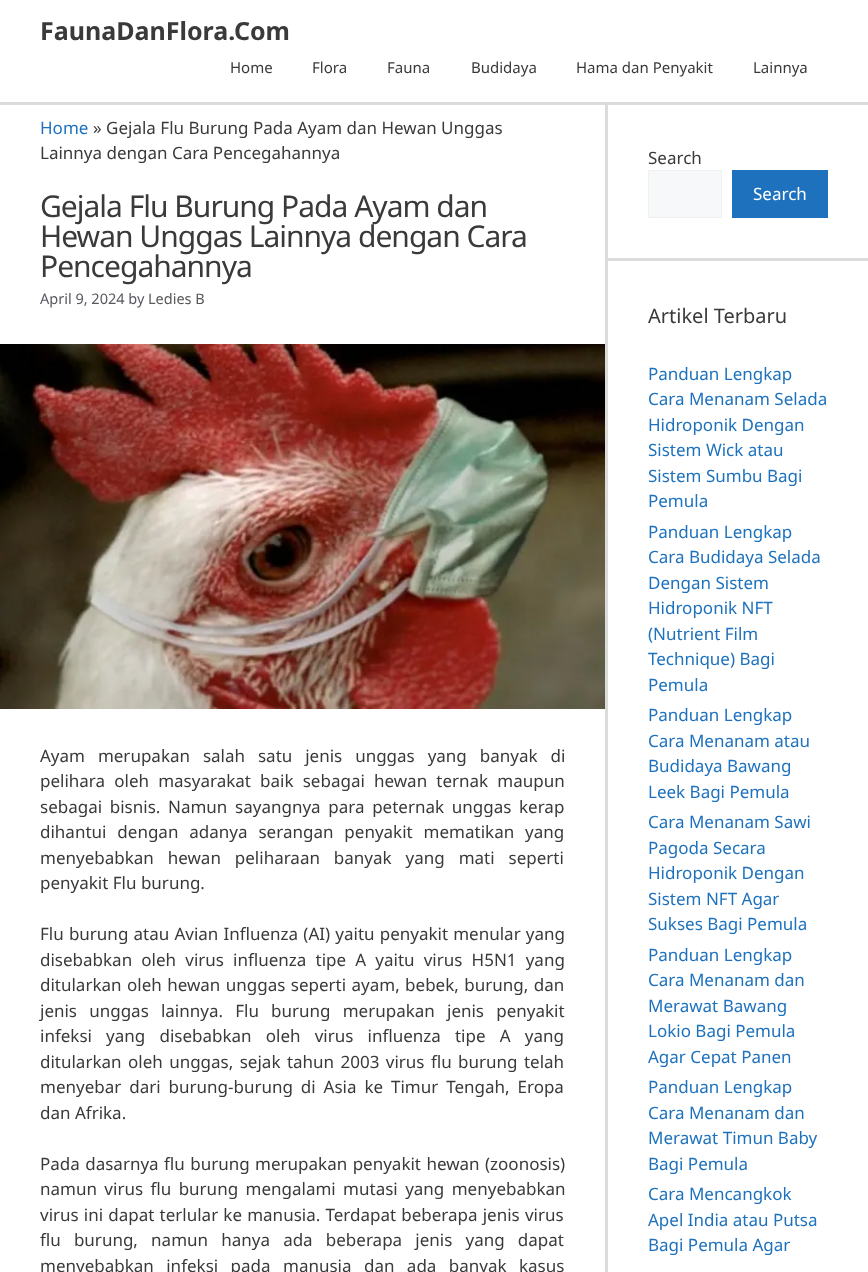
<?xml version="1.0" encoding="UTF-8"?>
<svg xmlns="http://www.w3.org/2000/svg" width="868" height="1272">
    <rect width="100%" height="100%" fill="#DBDBD9"/>
    <rect x="0" y="0" width="868" height="102" fill="#FFFFFF"/>
    <text x="40" y="40" font-family="Noto Sans" font-size="25" font-weight="700" fill="#3A3A3A">FaunaDanFlora.Com</text>
    <text x="230" y="73" font-family="Noto Sans" font-size="15" fill="#3A3A3A">Home</text>
    <text x="312" y="73" font-family="Noto Sans" font-size="15" fill="#3A3A3A">Flora</text>
    <text x="387" y="73" font-family="Noto Sans" font-size="15" fill="#3A3A3A">Fauna</text>
    <text x="471" y="73" font-family="Noto Sans" font-size="15" fill="#3A3A3A">Budidaya</text>
    <text x="576" y="73" font-family="Noto Sans" font-size="15" fill="#3A3A3A">Hama dan Penyakit</text>
    <text x="753" y="73" font-family="Noto Sans" font-size="15" fill="#3A3A3A">Lainnya</text>
    <rect x="0" y="105" width="605" height="1167" fill="#FFFFFF"/>
    <text x="40" y="134" font-family="Noto Sans" font-size="17" fill="#1E72BD">Home</text>
    <text x="93" y="134" font-family="Noto Sans" font-size="17" fill="#3A3A3A">» Gejala Flu Burung Pada Ayam dan Hewan Unggas</text>
    <text x="40" y="159" font-family="Noto Sans" font-size="17" fill="#3A3A3A">Lainnya dengan Cara Pencegahannya</text>
    <text font-family="Noto Sans" font-size="30" letter-spacing="-1" fill="#3A3A3A">
        <tspan x="40" y="217">Gejala Flu Burung Pada Ayam dan</tspan>
        <tspan x="40" y="247">Hewan Unggas Lainnya dengan Cara</tspan>
        <tspan x="40" y="277">Pencegahannya</tspan>
    </text>
    <text x="40" y="304" font-family="Noto Sans" font-size="14.5" fill="#575760">April 9, 2024 by</text>
    <text x="148" y="304" font-family="Noto Sans" font-size="14.5" fill="#595959">Ledies B</text>
    <image x="0" y="344" width="605" height="365" href="img_01.png"/>
    <text font-family="Noto Sans" font-size="17" fill="#3A3A3A">
        <tspan x="40" y="762" word-spacing="8.5">Ayam merupakan salah satu jenis unggas yang banyak di</tspan>
        <tspan x="40" y="787" word-spacing="4.75">pelihara oleh masyarakat baik sebagai hewan ternak maupun</tspan>
        <tspan x="40" y="813" word-spacing="3.25">sebagai bisnis. Namun sayangnya para peternak unggas kerap</tspan>
        <tspan x="40" y="838" word-spacing="6.5">dihantui dengan adanya serangan penyakit mematikan yang</tspan>
        <tspan x="40" y="864" word-spacing="9.5">menyebabkan hewan peliharaan banyak yang mati seperti</tspan>
        <tspan x="40" y="889">penyakit Flu burung.</tspan>
    </text>
    <text font-family="Noto Sans" font-size="17" fill="#3A3A3A">
        <tspan x="40" y="940" word-spacing="0.75">Flu burung atau Avian Influenza (AI) yaitu penyakit menular yang</tspan>
        <tspan x="40" y="966" word-spacing="4.75">disebabkan oleh virus influenza tipe A yaitu virus H5N1 yang</tspan>
        <tspan x="40" y="991" word-spacing="1">ditularkan oleh hewan unggas seperti ayam, bebek, burung, dan</tspan>
        <tspan x="40" y="1017" word-spacing="7.75">jenis unggas lainnya. Flu burung merupakan jenis penyakit</tspan>
        <tspan x="40" y="1042" word-spacing="9.75">infeksi yang disebabkan oleh virus influenza tipe A yang</tspan>
        <tspan x="40" y="1068" word-spacing="2">ditularkan oleh unggas, sejak tahun 2003 virus flu burung telah</tspan>
        <tspan x="40" y="1093" word-spacing="3.5">menyebar dari burung-burung di Asia ke Timur Tengah, Eropa</tspan>
        <tspan x="40" y="1119">dan Afrika.</tspan>
    </text>
    <text font-family="Noto Sans" font-size="17" fill="#3A3A3A">
        <tspan x="40" y="1170" word-spacing="1">Pada dasarnya flu burung merupakan penyakit hewan (zoonosis)</tspan>
        <tspan x="40" y="1195" word-spacing="3">namun virus flu burung mengalami mutasi yang menyebabkan</tspan>
        <tspan x="40" y="1221" word-spacing="0.75">virus ini dapat terlular ke manusia. Terdapat beberapa jenis virus</tspan>
        <tspan x="40" y="1246" word-spacing="8.75">flu burung, namun hanya ada beberapa jenis yang dapat</tspan>
        <tspan x="40" y="1272" word-spacing="8">menyebabkan infeksi pada manusia dan ada banyak kasus</tspan>
    </text>
    <rect x="608" y="105" width="260" height="153" fill="#FFFFFF"/>
    <text x="648" y="164" font-family="Noto Sans" font-size="17" fill="#3A3A3A">Search</text>
    <rect x="648.5" y="170.5" width="73" height="47" fill="#F7F8F9" stroke="#F0F0F0"/>
    <rect x="732" y="170" width="96" height="48" fill="#1E72BD"/>
    <text x="753" y="200" font-family="Noto Sans" font-size="17" fill="#FFFFFF">Search</text>
    <rect x="608" y="261" width="260" height="1011" fill="#FFFFFF"/>
    <text x="648" y="323" font-family="Noto Sans" font-size="20" fill="#3A3A3A">Artikel Terbaru</text>
    <text font-family="Noto Sans" font-size="17" fill="#1E72BD">
        <tspan x="648" y="380">Panduan Lengkap</tspan>
        <tspan x="648" y="405">Cara Menanam Selada</tspan>
        <tspan x="648" y="431">Hidroponik Dengan</tspan>
        <tspan x="648" y="456">Sistem Wick atau</tspan>
        <tspan x="648" y="482">Sistem Sumbu Bagi</tspan>
        <tspan x="648" y="507">Pemula</tspan>
        <tspan x="648" y="538">Panduan Lengkap</tspan>
        <tspan x="648" y="563">Cara Budidaya Selada</tspan>
        <tspan x="648" y="589">Dengan Sistem</tspan>
        <tspan x="648" y="614">Hidroponik NFT</tspan>
        <tspan x="648" y="640">(Nutrient Film</tspan>
        <tspan x="648" y="665">Technique) Bagi</tspan>
        <tspan x="648" y="691">Pemula</tspan>
        <tspan x="648" y="721">Panduan Lengkap</tspan>
        <tspan x="648" y="747">Cara Menanam atau</tspan>
        <tspan x="648" y="772">Budidaya Bawang</tspan>
        <tspan x="648" y="798">Leek Bagi Pemula</tspan>
        <tspan x="648" y="828">Cara Menanam Sawi</tspan>
        <tspan x="648" y="854">Pagoda Secara</tspan>
        <tspan x="648" y="879">Hidroponik Dengan</tspan>
        <tspan x="648" y="905">Sistem NFT Agar</tspan>
        <tspan x="648" y="930">Sukses Bagi Pemula</tspan>
        <tspan x="648" y="961">Panduan Lengkap</tspan>
        <tspan x="648" y="986">Cara Menanam dan</tspan>
        <tspan x="648" y="1012">Merawat Bawang</tspan>
        <tspan x="648" y="1037">Lokio Bagi Pemula</tspan>
        <tspan x="648" y="1063">Agar Cepat Panen</tspan>
        <tspan x="648" y="1093">Panduan Lengkap</tspan>
        <tspan x="648" y="1119">Cara Menanam dan</tspan>
        <tspan x="648" y="1144">Merawat Timun Baby</tspan>
        <tspan x="648" y="1170">Bagi Pemula</tspan>
        <tspan x="648" y="1200">Cara Mencangkok</tspan>
        <tspan x="648" y="1226">Apel India atau Putsa</tspan>
        <tspan x="648" y="1251">Bagi Pemula Agar</tspan>
    </text>
</svg>
